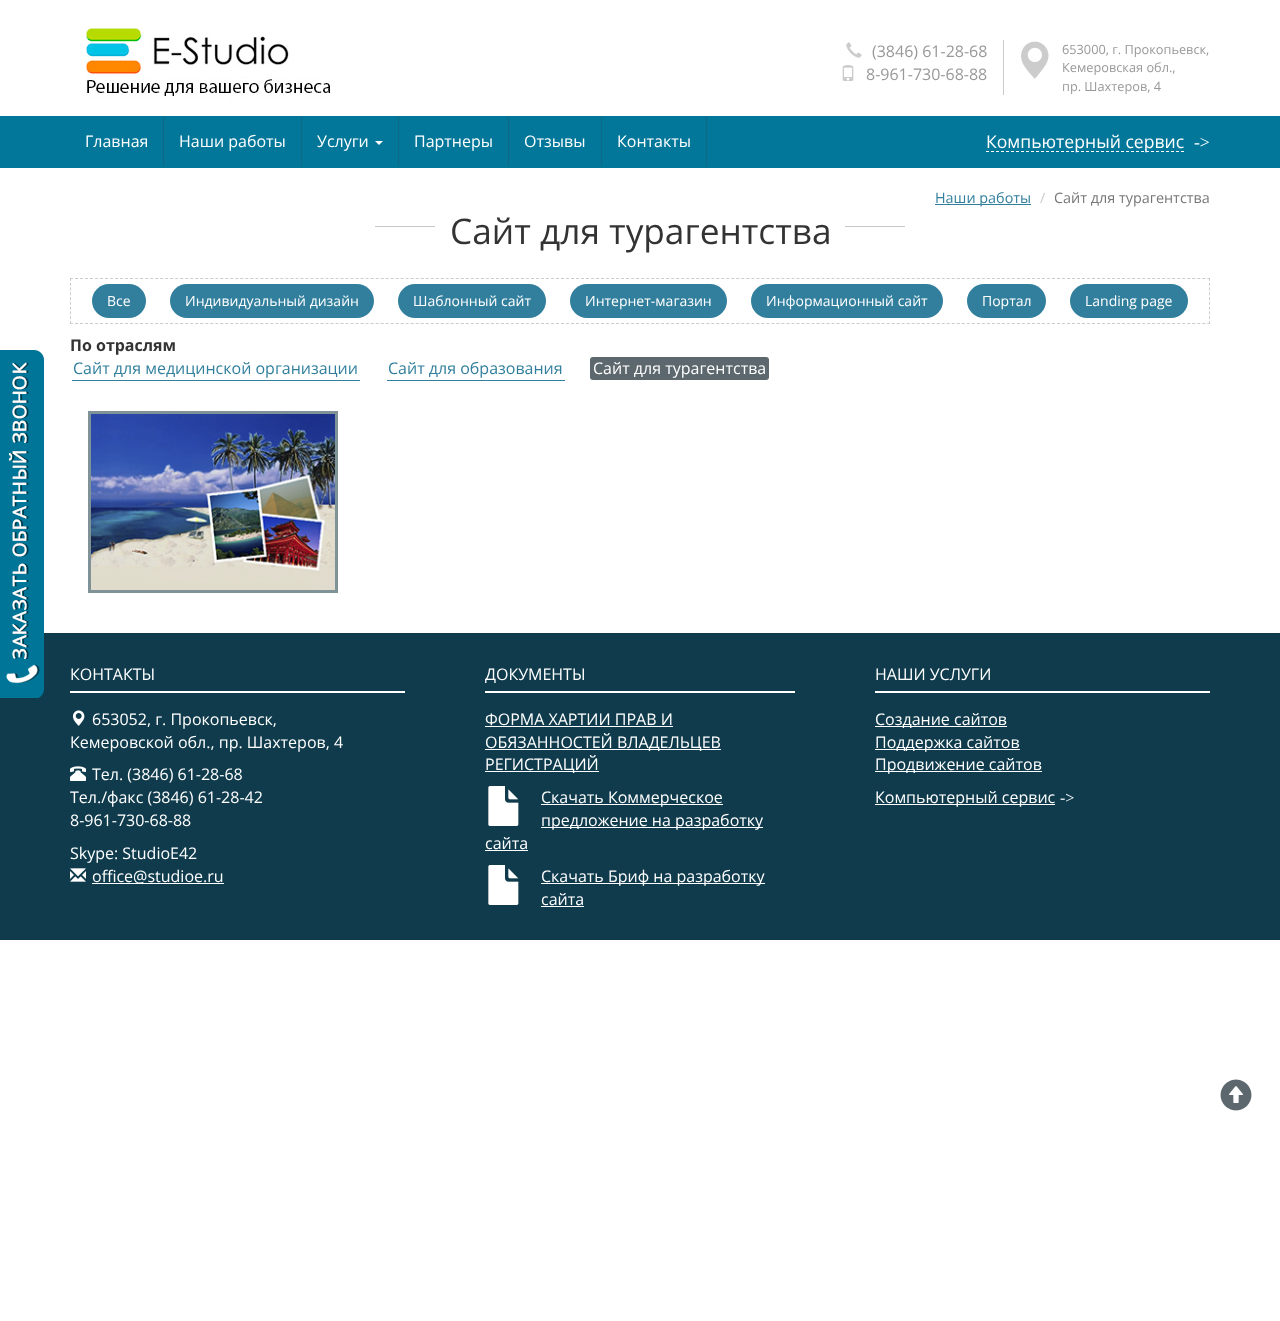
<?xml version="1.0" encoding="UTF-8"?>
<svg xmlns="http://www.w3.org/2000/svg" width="1280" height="1321">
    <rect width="100%" height="100%" fill="#FFFFFF"/>
    <image x="86" y="28" width="245" height="72" href="img_01.png"/>
    <image x="846" y="42" width="16" height="16" href="img_02.png"/>
    <text x="872" y="57" font-family="Open Sans" font-size="16" fill="#999999">(3846) 61-28-68</text>
    <image x="842" y="65" width="12" height="16" href="img_03.png"/>
    <text x="866" y="80" font-family="Open Sans" font-size="16" fill="#999999">8-961-730-68-88</text>
    <rect x="1003" y="40" width="1" height="55" fill="#CCCCCC"/>
    <image x="1021" y="41" width="28" height="38" href="img_04.png"/>
    <text font-family="Open Sans" font-size="12.75" fill="#999999">
        <tspan x="1062" y="54">653000, г. Прокопьевск,</tspan>
        <tspan x="1062" y="72">Кемеровская обл.,</tspan>
        <tspan x="1062" y="91">пр. Шахтеров, 4</tspan>
    </text>
    <rect x="0" y="116" width="1280" height="52" fill="#02779A"/>
    <rect x="163" y="116" width="1" height="50" fill="#0F6985"/>
    <text x="85" y="147" font-family="Open Sans" font-size="16" fill="#FFFFFF">Главная</text>
    <rect x="301" y="116" width="1" height="50" fill="#0F6985"/>
    <text x="179" y="147" font-family="Open Sans" font-size="16" fill="#FFFFFF">Наши работы</text>
    <rect x="398" y="116" width="1" height="50" fill="#0F6985"/>
    <text x="317" y="147" font-family="Open Sans" font-size="16" fill="#FFFFFF">Услуги</text>
    <path d="M 375 141 H 383 L 379 145 Z" fill="#FFFFFF"/>
    <rect x="508" y="116" width="1" height="50" fill="#0F6985"/>
    <text x="414" y="147" font-family="Open Sans" font-size="16" fill="#FFFFFF">Партнеры</text>
    <rect x="601" y="116" width="1" height="50" fill="#0F6985"/>
    <text x="524" y="147" font-family="Open Sans" font-size="16" fill="#FFFFFF">Отзывы</text>
    <rect x="706" y="116" width="1" height="50" fill="#0F6985"/>
    <text x="617" y="147" font-family="Open Sans" font-size="16" fill="#FFFFFF">Контакты</text>
    <path d="M 986 151.5 H 1184" fill="none" stroke="#FFFFFF" stroke-dasharray="3 2"/>
    <text x="986" y="148" font-family="Open Sans" font-size="17.6" fill="#FFFFFF">Компьютерный сервис</text>
    <text x="1194" y="148" font-family="Liberation Serif" font-size="17.6" fill="#FFFFFF">-&gt;</text>
    <rect x="935" y="204" width="96" height="1" fill="#317F9D"/>
    <text x="935" y="203" font-family="Open Sans" font-size="14.4" fill="#317F9D">Наши работы</text>
    <text x="1040" y="203" font-family="Open Sans" font-size="14.4" fill="#CCCCCC">/</text>
    <text x="1054" y="203" font-family="Open Sans" font-size="14.4" fill="#777777">Сайт для турагентства</text>
    <rect x="375" y="226" width="60" height="1" fill="#C6C6C6"/>
    <text x="450" y="244" font-family="Open Sans" font-size="35.25" fill="#333333">Сайт для турагентства</text>
    <rect x="845" y="226" width="60" height="1" fill="#C6C6C6"/>
    <path d="M 70 278.5 H 1210" fill="none" stroke="#CCCCCC" stroke-dasharray="3 2.01"/>
    <path d="M 1209.5 278 V 324" fill="none" stroke="#CCCCCC" stroke-dasharray="3 1.78"/>
    <path d="M 70 323.5 H 1210" fill="none" stroke="#CCCCCC" stroke-dasharray="3 2.01"/>
    <path d="M 70.5 278 V 324" fill="none" stroke="#CCCCCC" stroke-dasharray="3 1.78"/>
    <rect x="92" y="284" width="54" height="34" rx="17" fill="#317F9D"/>
    <text x="107" y="306" font-family="Open Sans" font-size="14" fill="#FFFFFF">Все</text>
    <rect x="170" y="284" width="204" height="34" rx="17" fill="#317F9D"/>
    <text x="185" y="306" font-family="Open Sans" font-size="14" fill="#FFFFFF">Индивидуальный дизайн</text>
    <rect x="398" y="284" width="148" height="34" rx="17" fill="#317F9D"/>
    <text x="413" y="306" font-family="Open Sans" font-size="14" fill="#FFFFFF">Шаблонный сайт</text>
    <rect x="570" y="284" width="157" height="34" rx="17" fill="#317F9D"/>
    <text x="585" y="306" font-family="Open Sans" font-size="14" fill="#FFFFFF">Интернет-магазин</text>
    <rect x="751" y="284" width="192" height="34" rx="17" fill="#317F9D"/>
    <text x="766" y="306" font-family="Open Sans" font-size="14" fill="#FFFFFF">Информационный сайт</text>
    <rect x="967" y="284" width="79" height="34" rx="17" fill="#317F9D"/>
    <text x="982" y="306" font-family="Open Sans" font-size="14" fill="#FFFFFF">Портал</text>
    <rect x="1070" y="284" width="118" height="34" rx="17" fill="#317F9D"/>
    <text x="1085" y="306" font-family="Open Sans" font-size="14" fill="#FFFFFF">Landing page</text>
    <text x="70" y="351" font-family="Open Sans" font-size="16" font-weight="700" fill="#333333">По отраслям</text>
    <rect x="72" y="380" width="288" height="1" fill="#317F9D"/>
    <text x="73" y="374" font-family="Open Sans" font-size="16" fill="#317F9D">Сайт для медицинской организации</text>
    <rect x="387" y="380" width="178" height="1" fill="#317F9D"/>
    <text x="388" y="374" font-family="Open Sans" font-size="16" fill="#317F9D">Сайт для образования</text>
    <rect x="590" y="357" width="179" height="23" rx="3" fill="#5D686E"/>
    <text x="593" y="374" font-family="Open Sans" font-size="16" fill="#FFFFFF">Сайт для турагентства</text>
    <rect x="88" y="411" width="250" height="182" fill="#7E9297"/>
    <image x="91" y="414" width="244" height="176" href="img_05.png"/>
    <rect x="0" y="633" width="1280" height="307" fill="#0F3B4C"/>
    <image x="0" y="350" width="44" height="348" href="img_06.png"/>
    <rect x="70" y="691" width="335" height="2" fill="#FFFFFF"/>
    <text x="70" y="680" font-family="Open Sans" font-size="16" fill="#FFFFFF">КОНТАКТЫ</text>
    <image x="72" y="710" width="13" height="16" href="img_07.png"/>
    <text x="92" y="725" font-family="Open Sans" font-size="16" fill="#FFFFFF">653052, г. Прокопьевск,</text>
    <text x="70" y="748" font-family="Open Sans" font-size="16" fill="#FFFFFF">Кемеровской обл., пр. Шахтеров, 4</text>
    <image x="70" y="766" width="16" height="15" href="img_08.png"/>
    <text x="92" y="780" font-family="Open Sans" font-size="16" fill="#FFFFFF">Тел. (3846) 61-28-68</text>
    <text font-family="Open Sans" font-size="16" fill="#FFFFFF">
        <tspan x="70" y="803">Тел./факс (3846) 61-28-42</tspan>
        <tspan x="70" y="826">8-961-730-68-88</tspan>
    </text>
    <text x="70" y="859" font-family="Open Sans" font-size="16" fill="#FFFFFF">Skype: StudioE42</text>
    <image x="70" y="868" width="16" height="14" href="img_09.png"/>
    <rect x="92" y="883" width="132" height="1" fill="#FFFFFF"/>
    <text x="92" y="882" font-family="Open Sans" font-size="16" fill="#FFFFFF">office@studioe.ru</text>
    <rect x="485" y="691" width="310" height="2" fill="#FFFFFF"/>
    <text x="485" y="680" font-family="Open Sans" font-size="16" fill="#FFFFFF">ДОКУМЕНТЫ</text>
    <text x="485" y="725" font-family="Open Sans" font-size="16" fill="#FFFFFF">ФОРМА ХАРТИИ ПРАВ И</text>
    <rect x="485" y="726" width="188" height="1" fill="#FFFFFF"/>
    <rect x="485" y="749" width="236" height="1" fill="#FFFFFF"/>
    <text x="485" y="748" font-family="Open Sans" font-size="16" fill="#FFFFFF">ОБЯЗАННОСТЕЙ ВЛАДЕЛЬЦЕВ</text>
    <rect x="485" y="771" width="114" height="1" fill="#FFFFFF"/>
    <text x="485" y="770" font-family="Open Sans" font-size="16" fill="#FFFFFF">РЕГИСТРАЦИЙ</text>
    <image x="488" y="786" width="31" height="40" href="img_10.png"/>
    <rect x="541" y="804" width="182" height="1" fill="#FFFFFF"/>
    <text x="541" y="803" font-family="Open Sans" font-size="16" fill="#FFFFFF">Скачать Коммерческое</text>
    <rect x="541" y="827" width="222" height="1" fill="#FFFFFF"/>
    <text x="541" y="826" font-family="Open Sans" font-size="16" fill="#FFFFFF">предложение на разработку</text>
    <text x="485" y="849" font-family="Open Sans" font-size="16" fill="#FFFFFF">сайта</text>
    <rect x="485" y="850" width="43" height="1" fill="#FFFFFF"/>
    <image x="488" y="865" width="31" height="40" href="img_10.png"/>
    <rect x="541" y="883" width="224" height="1" fill="#FFFFFF"/>
    <text font-family="Open Sans" font-size="16" fill="#FFFFFF">
        <tspan x="541" y="882">Скачать Бриф на разработку</tspan>
        <tspan x="541" y="905">сайта</tspan>
    </text>
    <rect x="541" y="906" width="43" height="1" fill="#FFFFFF"/>
    <rect x="875" y="691" width="335" height="2" fill="#FFFFFF"/>
    <text x="875" y="680" font-family="Open Sans" font-size="16" fill="#FFFFFF">НАШИ УСЛУГИ</text>
    <rect x="875" y="726" width="132" height="1" fill="#FFFFFF"/>
    <text x="875" y="725" font-family="Open Sans" font-size="16" fill="#FFFFFF">Создание сайтов</text>
    <rect x="875" y="749" width="145" height="1" fill="#FFFFFF"/>
    <text x="875" y="748" font-family="Open Sans" font-size="16" fill="#FFFFFF">Поддержка сайтов</text>
    <rect x="875" y="771" width="167" height="1" fill="#FFFFFF"/>
    <text x="875" y="770" font-family="Open Sans" font-size="16" fill="#FFFFFF">Продвижение сайтов</text>
    <rect x="875" y="804" width="180" height="1" fill="#FFFFFF"/>
    <text x="875" y="803" font-family="Open Sans" font-size="16" fill="#FFFFFF">Компьютерный сервис</text>
    <text x="1060" y="803" font-family="Liberation Serif" font-size="16" fill="#FFFFFF">-&gt;</text>
    <image x="1220" y="1079" width="32" height="32" href="img_11.png"/>
</svg>
